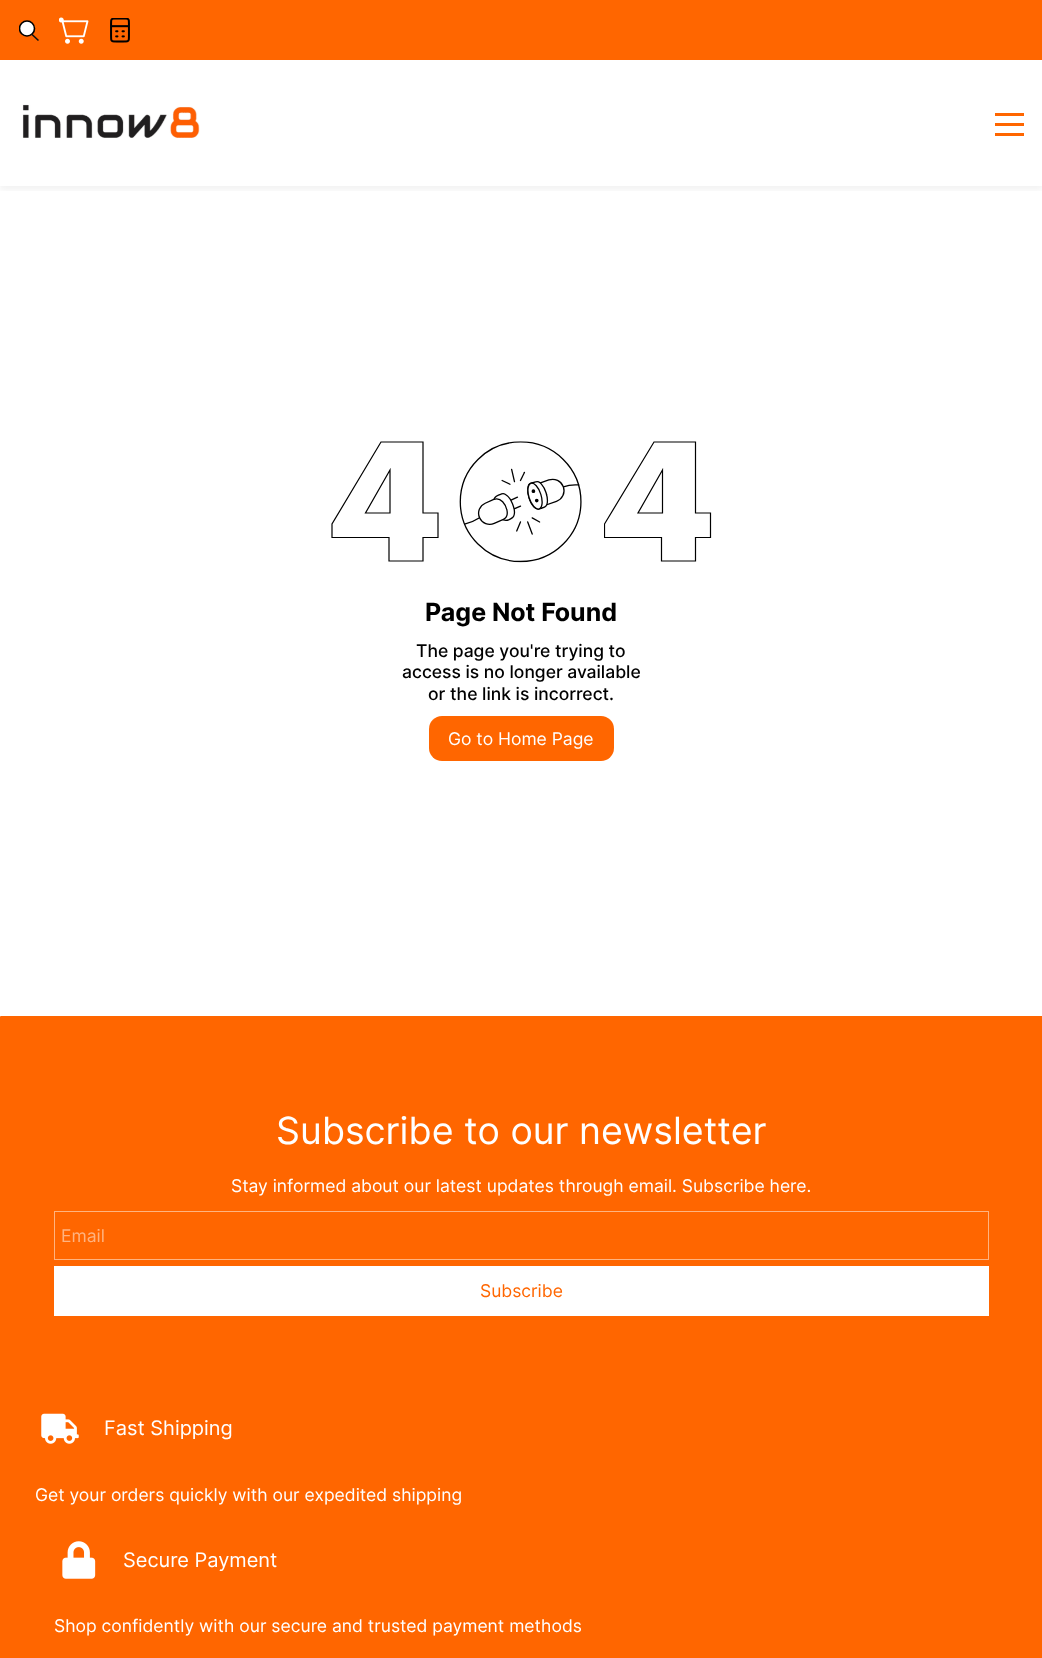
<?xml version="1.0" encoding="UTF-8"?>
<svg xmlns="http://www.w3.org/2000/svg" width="1042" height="1658">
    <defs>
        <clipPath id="clip1"><rect x="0" y="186" width="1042" height="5"/></clipPath>
        <filter id="blur1" x="-50%" y="-200%" width="200%" height="500%"><feGaussianBlur stdDeviation="3"/></filter>
        <clipPath id="clip2"><rect x="19" y="20" width="21" height="21"/></clipPath>
        <clipPath id="clip3"><rect x="604" y="441" width="109" height="122"/></clipPath>
    </defs>
    <rect width="100%" height="100%" fill="#FFFFFF"/>
    <g clip-path="url(#clip1)">
        <rect x="0" y="4" width="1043" height="186" fill="#000000" fill-opacity="0.05" filter="url(#blur1)"/>
    </g>
    <rect x="0" y="0" width="1042" height="60" fill="#FF6600"/>
    <circle cx="27" cy="28.5" r="7.5" fill="#FFFFFF"/>
    <g clip-path="url(#clip2)">
        <circle cx="27" cy="28.5" r="7.5" fill="none" stroke="#000000" stroke-width="1.6"/>
    </g>
    <path d="M 31.5 34 L 38.5 40.5" fill="none" stroke="#10100F" stroke-width="1.6"/>
    <image x="59" y="17" width="30" height="27" href="img_01.png"/>
    <image x="110" y="18" width="20" height="25" href="img_02.png"/>
    <image x="22" y="104" width="178" height="34" href="img_03.png"/>
    <rect x="995" y="113" width="29" height="3" fill="#FF6600"/>
    <rect x="995" y="123" width="29" height="3" fill="#FF6600"/>
    <rect x="995" y="133" width="29" height="3" fill="#FF6600"/>
    <path d="M 423 442 V 513 H 438 V 537.5 H 423 V 561 H 389 V 537.5 H 332 V 524 L 381 442 Z M 365.5 513 H 390 V 470 Z" fill="none" stroke="#000000" stroke-width="1.2"/>
    <image x="459" y="441" width="123" height="122" href="img_04.png"/>
    <g clip-path="url(#clip3)">
        <path d="M 695.5 442 V 513 H 710.5 V 537.5 H 695.5 V 561 H 661.5 V 537.5 H 604.5 V 524 L 654 442 Z M 638 513 H 662.5 V 470 Z" fill="none" stroke="#000000" stroke-width="1.2"/>
    </g>
    <text x="425" y="621" font-family="Inter" font-size="25" font-weight="700" fill="#000000">Page Not Found</text>
    <text x="416" y="657" font-family="Inter" font-size="17.5" font-weight="500" fill="#000000">The page you're trying to</text>
    <text x="402" y="678" font-family="Inter" font-size="17.5" font-weight="500" fill="#000000">access is no longer available</text>
    <text x="428" y="700" font-family="Inter" font-size="17.5" font-weight="500" fill="#000000">or the link is incorrect.</text>
    <rect x="429" y="716" width="185" height="45" rx="13" fill="#FF6600"/>
    <text x="448" y="745" font-family="Inter" font-size="17.5" fill="#FFFFFF">Go to Home Page</text>
    <rect x="0" y="1016" width="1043" height="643" rx="1" fill="#FF6600"/>
    <text x="276" y="1144" font-family="Inter" font-size="37.5" fill="#FFFFFF">Subscribe to our newsletter</text>
    <text x="231" y="1192" font-family="Inter" font-size="17.5" fill="#FFFFFF">Stay informed about our latest updates through email. Subscribe here.</text>
    <rect x="54.5" y="1211.5" width="934" height="48" fill="none" stroke="#FFB380"/>
    <text x="61" y="1242" font-family="Inter" font-size="17.5" fill="#FFB380">Email</text>
    <rect x="54" y="1266" width="935" height="50" fill="#FFFFFF"/>
    <text x="480" y="1297" font-family="Inter" font-size="17.5" fill="#FF6600">Subscribe</text>
    <image x="41" y="1413" width="38" height="31" href="img_05.png"/>
    <text x="104" y="1435" font-family="Inter" font-size="20" fill="#FFFFFF">Fast Shipping</text>
    <text x="35" y="1501" font-family="Inter" font-size="17.5" fill="#FFFFFF">Get your orders quickly with our expedited shipping</text>
    <image x="62" y="1541" width="34" height="38" href="img_06.png"/>
    <text x="123" y="1567" font-family="Inter" font-size="20" fill="#FFFFFF">Secure Payment</text>
    <text x="54" y="1632" font-family="Inter" font-size="17.5" fill="#FFFFFF">Shop confidently with our secure and trusted payment methods</text>
</svg>
